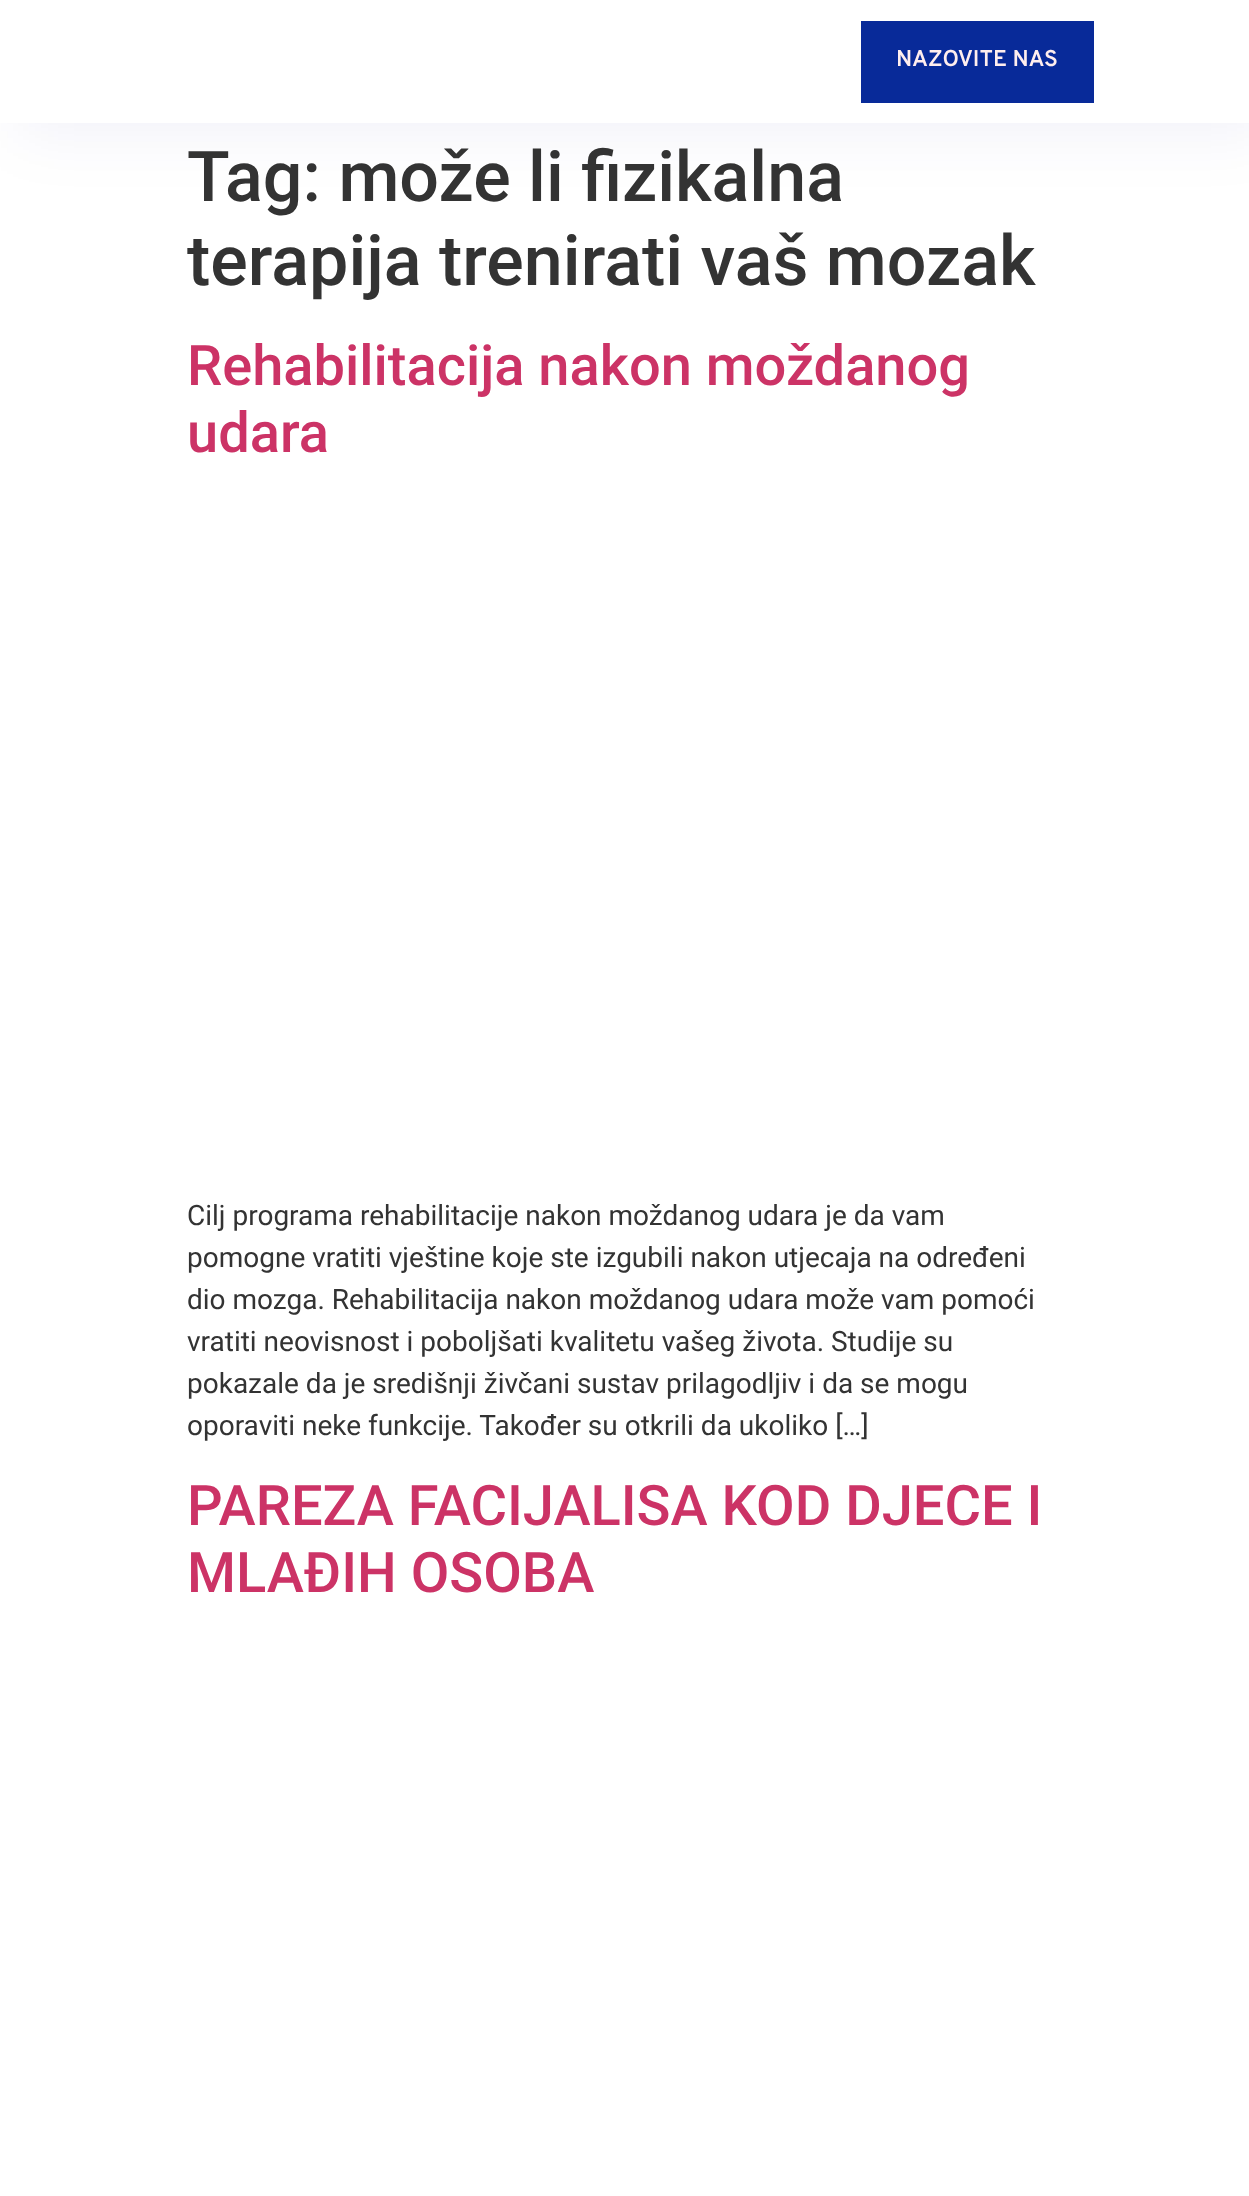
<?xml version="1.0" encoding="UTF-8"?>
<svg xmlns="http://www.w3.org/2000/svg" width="1249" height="2196">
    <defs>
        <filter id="blur1" x="-50%" y="-200%" width="200%" height="500%"><feGaussianBlur stdDeviation="32.5"/></filter>
    </defs>
    <rect width="100%" height="100%" fill="#FFFFFF"/>
    <rect x="18" y="9" width="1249" height="122" fill="#14308B" fill-opacity="0.06" filter="url(#blur1)"/>
    <rect x="0" y="0" width="1249" height="123" fill="#FFFFFF"/>
    <rect x="861" y="21" width="233" height="82" fill="#082A99"/>
    <text x="896" y="66" font-family="Overpass" font-size="22.75" font-weight="600" fill="#FFEEEE">NAZOVITE NAS</text>
    <text font-family="Roboto" font-size="70" font-weight="500" fill="#333333">
        <tspan x="187" y="201">Tag: može li fizikalna</tspan>
        <tspan x="187" y="285">terapija trenirati vaš mozak</tspan>
    </text>
    <text font-family="Roboto" font-size="56" font-weight="500" fill="#CC3366">
        <tspan x="187" y="385">Rehabilitacija nakon moždanog</tspan>
        <tspan x="187" y="452">udara</tspan>
    </text>
    <text font-family="Roboto" font-size="28" fill="#333333">
        <tspan x="187" y="1225">Cilj programa rehabilitacije nakon moždanog udara je da vam</tspan>
        <tspan x="187" y="1267">pomogne vratiti vještine koje ste izgubili nakon utjecaja na određeni</tspan>
        <tspan x="187" y="1309">dio mozga. Rehabilitacija nakon moždanog udara može vam pomoći</tspan>
        <tspan x="187" y="1351">vratiti neovisnost i poboljšati kvalitetu vašeg života. Studije su</tspan>
        <tspan x="187" y="1393">pokazale da je središnji živčani sustav prilagodljiv i da se mogu</tspan>
        <tspan x="187" y="1435">oporaviti neke funkcije. Također su otkrili da ukoliko […]</tspan>
    </text>
    <text font-family="Roboto" font-size="56" font-weight="500" fill="#CC3366">
        <tspan x="187" y="1525">PAREZA FACIJALISA KOD DJECE I</tspan>
        <tspan x="187" y="1592">MLAĐIH OSOBA</tspan>
    </text>
</svg>
